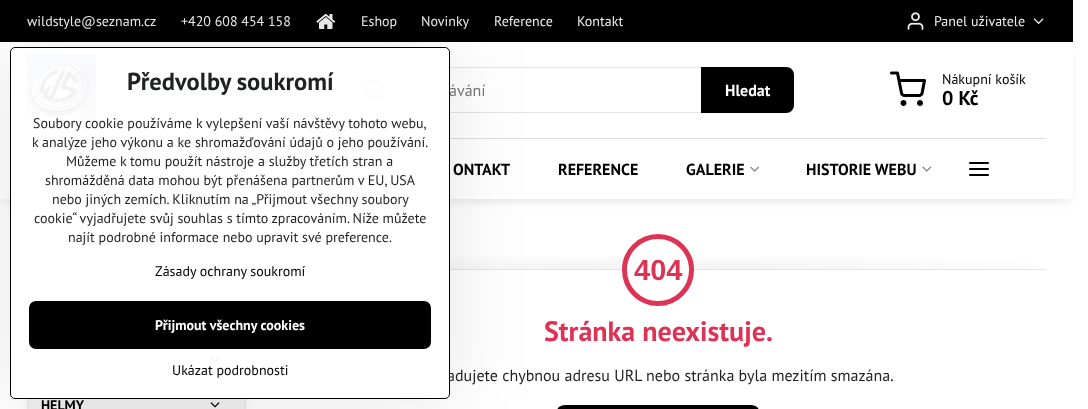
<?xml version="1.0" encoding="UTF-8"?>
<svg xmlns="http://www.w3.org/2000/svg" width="1088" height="409">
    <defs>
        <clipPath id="clip1"><path d="M 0 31 H 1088 V 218 H 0 Z M 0 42 H 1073 V 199 H 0 Z" clip-rule="evenodd"/></clipPath>
        <filter id="blur1" x="-50%" y="-200%" width="200%" height="500%"><feGaussianBlur stdDeviation="6"/></filter>
        <radialGradient id="g1" gradientUnits="userSpaceOnUse" cx="0" cy="0" r="1" gradientTransform="matrix(658 0 0 23 658 269)"><stop offset="0" stop-color="#F2F2F2"/><stop offset="0.7" stop-color="#FFFFFF"/></radialGradient>
        <filter id="blur2" x="-50%" y="-200%" width="200%" height="500%"><feGaussianBlur stdDeviation="8"/></filter>
        <clipPath id="clip2"><path d="M 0 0 H 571 V 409 H 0 Z M 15 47 H 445 C 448 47 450 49 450 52 V 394 C 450 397 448 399 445 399 H 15 C 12 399 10 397 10 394 V 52 C 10 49 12 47 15 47 Z" clip-rule="evenodd"/></clipPath>
        <filter id="blur3" x="-50%" y="-200%" width="200%" height="500%"><feGaussianBlur stdDeviation="40"/></filter>
    </defs>
    <rect width="100%" height="100%" fill="#FFFFFF"/>
    <rect x="0" y="0" width="1073" height="42" fill="#000000"/>
    <text x="27" y="26" font-family="PT Sans" font-size="14" fill="#EEEEEE">wildstyle@seznam.cz</text>
    <text x="181" y="26" font-family="PT Sans" font-size="14" fill="#EEEEEE">+420 608 454 158</text>
    <image x="316" y="14" width="20" height="15" href="img_01.png"/>
    <text x="361" y="26" font-family="PT Sans" font-size="14" fill="#EEEEEE">Eshop</text>
    <text x="421" y="26" font-family="PT Sans" font-size="14" fill="#EEEEEE">Novinky</text>
    <text x="494" y="26" font-family="PT Sans" font-size="14" fill="#EEEEEE">Reference</text>
    <text x="577" y="26" font-family="PT Sans" font-size="14" fill="#EEEEEE">Kontakt</text>
    <image x="907" y="12" width="17" height="18" href="img_02.png"/>
    <text x="934" y="26" font-family="PT Sans" font-size="14" fill="#EEEEEE">Panel uživatele</text>
    <image x="1033" y="18" width="11" height="6" href="img_03.png"/>
    <g clip-path="url(#clip1)">
        <rect x="4" y="50" width="1065" height="149" fill="#000014" fill-opacity="0.15" filter="url(#blur1)"/>
    </g>
    <image x="27" y="54" width="69" height="72" href="img_04.png"/>
    <rect x="346.5" y="67.5" width="447" height="45" rx="7.5" fill="none" stroke="#E5E5E3"/>
    <image x="365" y="80" width="20" height="20" href="img_05.png"/>
    <text x="449" y="96" font-family="PT Sans" font-size="16" fill="#757575">ávání</text>
    <path d="M 701 67 H 786 C 790.5 67 794 70.5 794 75 V 105 C 794 109.5 790.5 113 786 113 H 701 Z" fill="#000000"/>
    <text x="725" y="96" font-family="PT Sans" font-size="16" font-weight="700" fill="#FFFFFF">Hledat</text>
    <image x="890" y="71" width="36" height="35" href="img_06.png"/>
    <text x="942" y="84" font-family="PT Sans" font-size="14" fill="#000000">Nákupní košík</text>
    <text x="942" y="105" font-family="PT Sans" font-size="20" font-weight="700" fill="#000000">0 Kč</text>
    <rect x="27" y="138" width="1019" height="1" fill="#DDDDDD"/>
    <text x="453" y="175" font-family="PT Sans" font-size="16" font-weight="700" fill="#000000">ONTAKT</text>
    <text x="558" y="175" font-family="PT Sans" font-size="16" font-weight="700" fill="#000000">REFERENCE</text>
    <text x="686" y="175" font-family="PT Sans" font-size="16" font-weight="700" fill="#000000">GALERIE</text>
    <image x="750" y="166" width="9" height="6" href="img_07.png"/>
    <text x="806" y="175" font-family="PT Sans" font-size="16" font-weight="700" fill="#000000">HISTORIE WEBU</text>
    <image x="922" y="166" width="10" height="6" href="img_08.png"/>
    <image x="969" y="162" width="20" height="14" href="img_09.png"/>
    <rect x="270" y="269" width="776" height="1" fill="#E5E5E3"/>
    <rect x="288" y="256" width="740" height="13" fill="url(#g1)"/>
    <circle cx="658" cy="270" r="33.5" fill="#FFFFFF" stroke="#DD3355" stroke-width="5"/>
    <text x="634" y="280" font-family="Liberation Sans" font-size="29" font-weight="700" fill="#DD3355">404</text>
    <text x="544" y="341" font-family="PT Sans" font-size="28" font-weight="700" fill="#DD3355">Stránka neexistuje.</text>
    <text x="447" y="381" font-family="PT Sans" font-size="16" fill="#1F2122">adujete chybnou adresu URL nebo stránka byla mezitím smazána.</text>
    <rect x="557" y="405" width="202" height="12" rx="8" fill="#000000"/>
    <rect x="35" y="245" width="203" height="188" fill="#000014" fill-opacity="0.15" filter="url(#blur2)"/>
    <rect x="27.5" y="233.5" width="218" height="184" rx="7.5" fill="#F0F0F0" stroke="#E5E5E3"/>
    <rect x="41" y="292" width="191" height="1" fill="#E5E5E3"/>
    <rect x="41" y="382" width="191" height="1" fill="#E5E5E3"/>
    <image x="210" y="357" width="10" height="6" href="img_10.png"/>
    <text x="41" y="410" font-family="PT Sans" font-size="14" font-weight="700" fill="#000000">HELMY</text>
    <image x="210" y="402" width="10" height="6" href="img_10.png"/>
    <g clip-path="url(#clip2)">
        <rect x="10" y="47" width="440" height="352" rx="5" fill="#000000" fill-opacity="0.1" filter="url(#blur3)"/>
    </g>
    <rect x="10.5" y="47.5" width="439" height="351" rx="4.5" fill="#FFFFFF" fill-opacity="0.95" stroke="#000000"/>
    <text x="127" y="90" font-family="PT Sans" font-size="24.5" font-weight="700" fill="#1F2122">Předvolby soukromí</text>
    <text x="33" y="128" font-family="PT Sans" font-size="14" fill="#1F2122">Soubory cookie používáme k vylepšení vaší návštěvy tohoto webu,</text>
    <text x="32" y="147" font-family="PT Sans" font-size="14" fill="#1F2122">k analýze jeho výkonu a ke shromažďování údajů o jeho používání.</text>
    <text x="66" y="166" font-family="PT Sans" font-size="14" fill="#1F2122">Můžeme k tomu použít nástroje a služby třetích stran a</text>
    <text x="45" y="185" font-family="PT Sans" font-size="14" fill="#1F2122">shromážděná data mohou být přenášena partnerům v EU, USA</text>
    <text x="52" y="204" font-family="PT Sans" font-size="14" fill="#1F2122">nebo jiných zemích. Kliknutím na „Přijmout všechny soubory</text>
    <text x="34" y="223" font-family="PT Sans" font-size="14" fill="#1F2122">cookie“ vyjadřujete svůj souhlas s tímto zpracováním. Níže můžete</text>
    <text x="68" y="242" font-family="PT Sans" font-size="14" fill="#1F2122">najít podrobné informace nebo upravit své preference.</text>
    <text x="155" y="276" font-family="PT Sans" font-size="14" fill="#000000">Zásady ochrany soukromí</text>
    <rect x="29" y="301" width="402" height="48" rx="7" fill="#000000"/>
    <text x="155" y="330" font-family="PT Sans" font-size="14" font-weight="700" fill="#FFFFFF">Přijmout všechny cookies</text>
    <text x="172" y="375" font-family="PT Sans" font-size="14" fill="#000000">Ukázat podrobnosti</text>
</svg>
